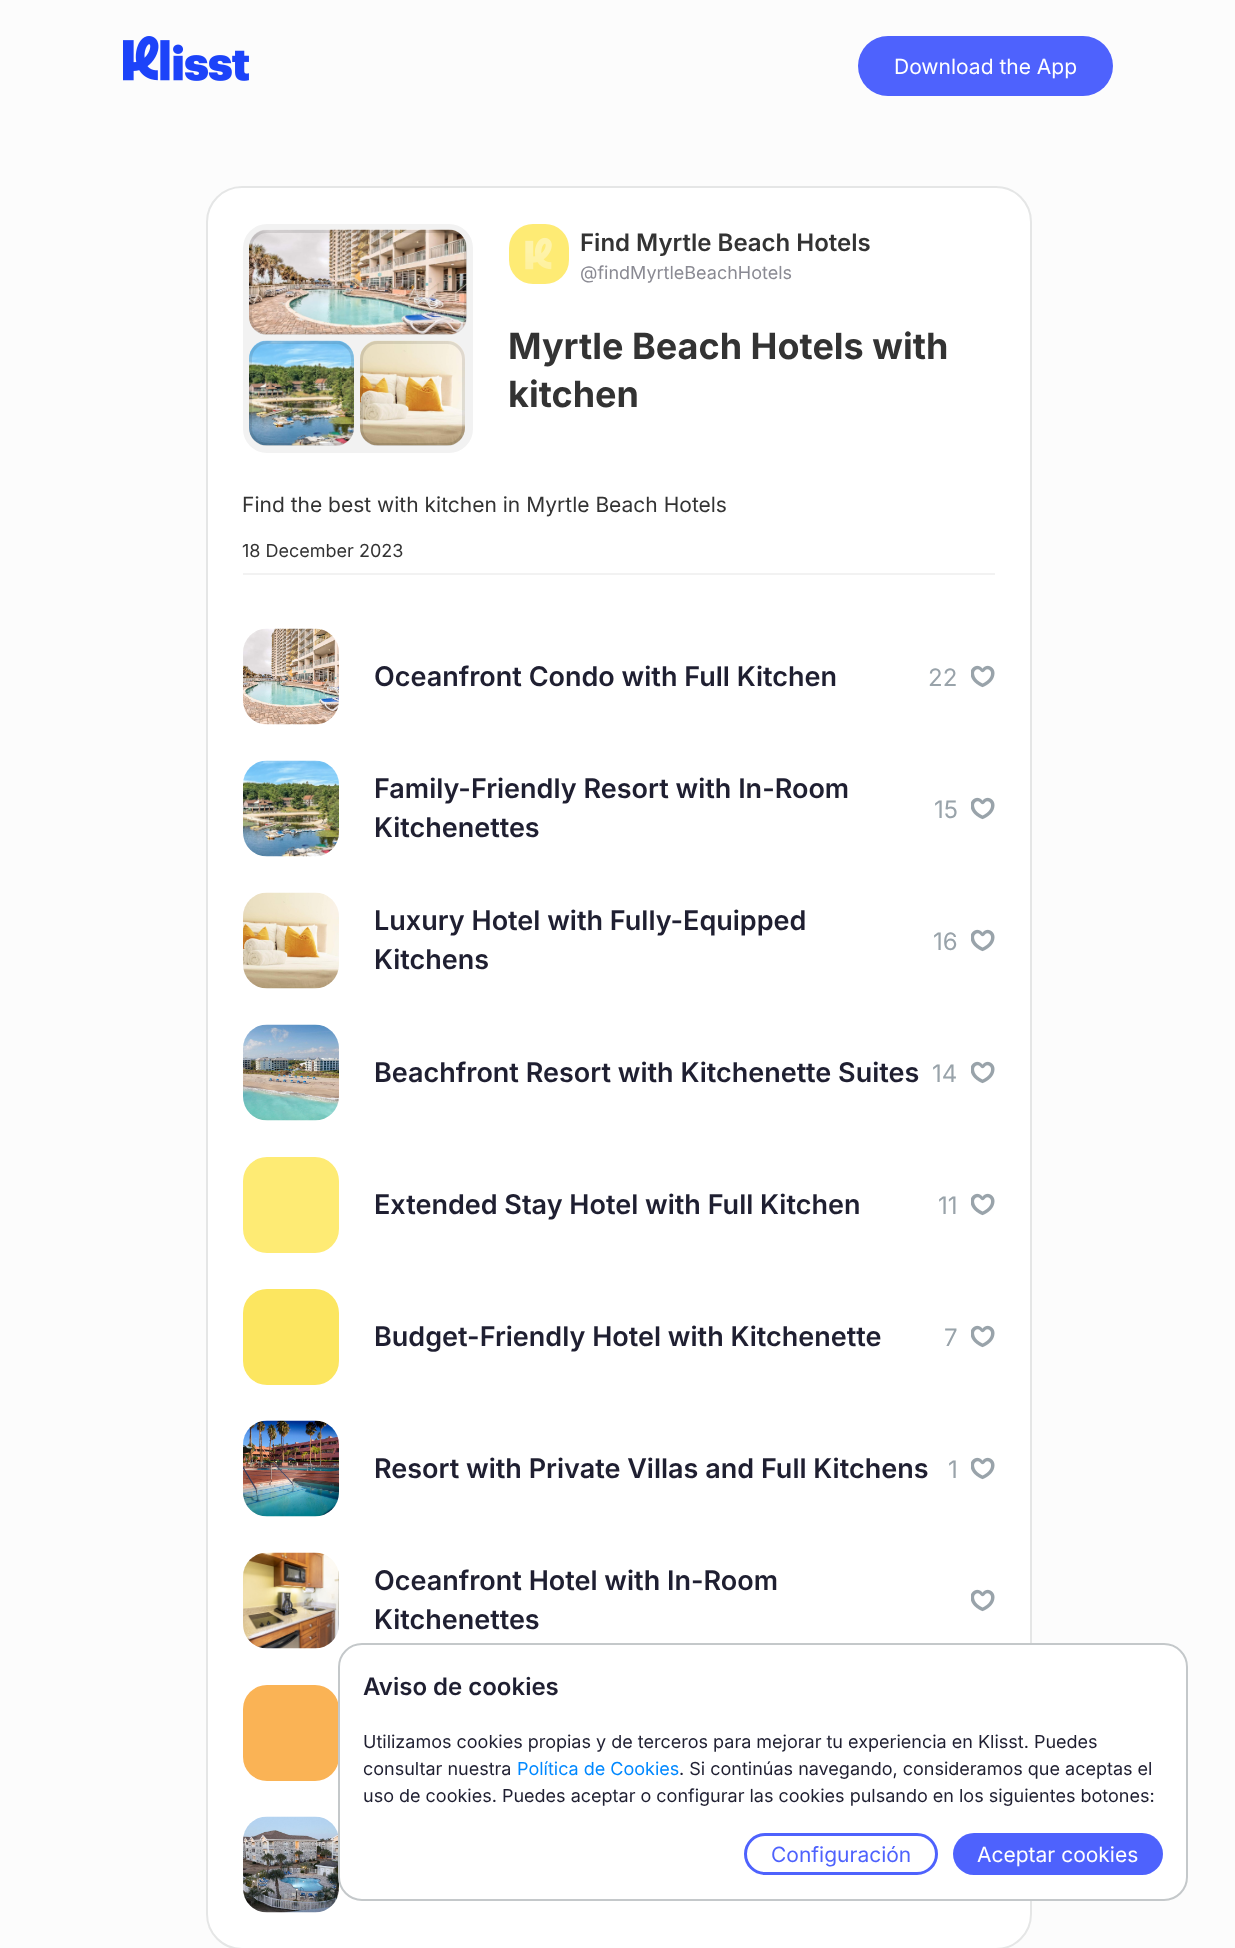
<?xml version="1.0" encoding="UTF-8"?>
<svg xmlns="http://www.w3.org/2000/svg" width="1235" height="1948">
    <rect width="100%" height="100%" fill="#FCFCFC"/>
    <image x="123" y="36" width="126" height="45" href="img_01.png"/>
    <rect x="858" y="36" width="255" height="60" rx="30" fill="#4E62FD"/>
    <text x="894" y="74" font-family="Inter" font-size="21" fill="#FFFFFF">Download the App</text>
    <rect x="207" y="187" width="824" height="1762" rx="35" fill="#FFFFFF" stroke="#E5E6E6" stroke-width="2"/>
    <rect x="243" y="224" width="230" height="229" rx="24" fill="#F2F2F2"/>
    <image x="249" y="229" width="218" height="106" href="img_02.png"/>
    <rect x="250.5" y="231.5" width="215" height="102" rx="16.5" fill="none" stroke="#000000" stroke-opacity="0.1" stroke-width="3"/>
    <image x="249" y="340" width="105" height="106" href="img_03.png"/>
    <rect x="250.5" y="342.5" width="102" height="102" rx="16.5" fill="none" stroke="#000000" stroke-opacity="0.1" stroke-width="3"/>
    <image x="360" y="340" width="105" height="106" href="img_04.png"/>
    <rect x="361.5" y="342.5" width="102" height="102" rx="16.5" fill="none" stroke="#000000" stroke-opacity="0.1" stroke-width="3"/>
    <rect x="509" y="224" width="60" height="60" rx="24" fill="#FEEB74"/>
    <image x="525" y="237" width="27" height="33" href="img_05.png"/>
    <text x="580" y="251" font-family="Inter" font-size="24" font-weight="600" fill="#333333">Find Myrtle Beach Hotels</text>
    <text x="580" y="279" font-family="Inter" font-size="18" fill="#8A8A93">@findMyrtleBeachHotels</text>
    <text font-family="Inter" font-size="36" font-weight="700" fill="#333333">
        <tspan x="508" y="359">Myrtle Beach Hotels with</tspan>
        <tspan x="508" y="407">kitchen</tspan>
    </text>
    <text x="242" y="512" font-family="Inter" font-size="21" fill="#333333">Find the best with kitchen in Myrtle Beach Hotels</text>
    <rect x="243" y="573" width="752" height="2" fill="#F2F2F2"/>
    <text x="242" y="557" font-family="Inter" font-size="18" fill="#333333">18 December 2023</text>
    <image x="243" y="628" width="96" height="97" href="img_06.png"/>
    <text x="374" y="686" font-family="Inter" font-size="27" font-weight="600" fill="#1F1F31">Oceanfront Condo with Full Kitchen</text>
    <text x="928" y="686" font-family="Inter" font-size="24" fill="#99A3AA">22</text>
    <image x="971" y="665" width="24" height="23" href="img_07.png"/>
    <image x="243" y="760" width="96" height="97" href="img_08.png"/>
    <text font-family="Inter" font-size="27" font-weight="600" fill="#1F1F31">
        <tspan x="374" y="798">Family-Friendly Resort with In-Room</tspan>
        <tspan x="374" y="837">Kitchenettes</tspan>
    </text>
    <text x="934" y="818" font-family="Inter" font-size="24" fill="#99A3AA">15</text>
    <image x="971" y="797" width="24" height="23" href="img_07.png"/>
    <image x="243" y="892" width="96" height="97" href="img_09.png"/>
    <text font-family="Inter" font-size="27" font-weight="600" fill="#1F1F31">
        <tspan x="374" y="930">Luxury Hotel with Fully-Equipped</tspan>
        <tspan x="374" y="969">Kitchens</tspan>
    </text>
    <text x="933" y="950" font-family="Inter" font-size="24" fill="#99A3AA">16</text>
    <image x="971" y="929" width="24" height="23" href="img_07.png"/>
    <image x="243" y="1024" width="96" height="97" href="img_10.png"/>
    <text x="374" y="1082" font-family="Inter" font-size="27" font-weight="600" fill="#1F1F31">Beachfront Resort with Kitchenette Suites</text>
    <text x="932" y="1082" font-family="Inter" font-size="24" fill="#99A3AA">14</text>
    <image x="971" y="1061" width="24" height="23" href="img_07.png"/>
    <rect x="243" y="1157" width="96" height="96" rx="24" fill="#FEEB74"/>
    <text x="374" y="1214" font-family="Inter" font-size="27" font-weight="600" fill="#1F1F31">Extended Stay Hotel with Full Kitchen</text>
    <text x="938" y="1214" font-family="Inter" font-size="24" fill="#99A3AA">11</text>
    <image x="971" y="1193" width="24" height="23" href="img_07.png"/>
    <rect x="243" y="1289" width="96" height="96" rx="24" fill="#FCE660"/>
    <text x="374" y="1346" font-family="Inter" font-size="27" font-weight="600" fill="#1F1F31">Budget-Friendly Hotel with Kitchenette</text>
    <text x="944" y="1346" font-family="Inter" font-size="24" fill="#99A3AA">7</text>
    <image x="971" y="1325" width="24" height="23" href="img_07.png"/>
    <image x="243" y="1420" width="96" height="97" href="img_11.png"/>
    <text x="374" y="1478" font-family="Inter" font-size="27" font-weight="600" fill="#1F1F31">Resort with Private Villas and Full Kitchens</text>
    <text x="948" y="1478" font-family="Inter" font-size="24" fill="#99A3AA">1</text>
    <image x="971" y="1457" width="24" height="23" href="img_07.png"/>
    <image x="243" y="1552" width="96" height="97" href="img_12.png"/>
    <text font-family="Inter" font-size="27" font-weight="600" fill="#1F1F31">
        <tspan x="374" y="1590">Oceanfront Hotel with In-Room</tspan>
        <tspan x="374" y="1629">Kitchenettes</tspan>
    </text>
    <image x="971" y="1589" width="24" height="23" href="img_07.png"/>
    <rect x="243" y="1685" width="96" height="96" rx="24" fill="#FAB355"/>
    <image x="243" y="1816" width="96" height="97" href="img_13.png"/>
    <rect x="339" y="1644" width="848" height="256" rx="23" fill="#FFFFFF" stroke="#C4C8CA" stroke-width="2"/>
    <text x="363" y="1695" font-family="Inter" font-size="24" font-weight="600" fill="#1F1F31">Aviso de cookies</text>
    <text font-family="Inter" font-size="18" fill="#1F1F31">
        <tspan x="363" y="1748">Utilizamos cookies propias y de terceros para mejorar tu experiencia en Klisst. Puedes</tspan>
        <tspan x="363" y="1775">consultar nuestra</tspan>
    </text>
    <text x="517" y="1775" font-family="Inter" font-size="18" fill="#0088FF">Política de Cookies</text>
    <text x="679" y="1775" font-family="Inter" font-size="18" fill="#1F1F31">. Si continúas navegando, consideramos que aceptas el</text>
    <text x="363" y="1802" font-family="Inter" font-size="18" fill="#1F1F31">uso de cookies. Puedes aceptar o configurar las cookies pulsando en los siguientes botones:</text>
    <rect x="745.5" y="1834.5" width="191" height="39" rx="19.5" fill="none" stroke="#4E62FD" stroke-width="3"/>
    <text x="771" y="1862" font-family="Inter" font-size="21" fill="#4E62FD">Configuración</text>
    <rect x="953" y="1833" width="210" height="42" rx="21" fill="#4E62FD"/>
    <text x="977" y="1862" font-family="Inter" font-size="21" fill="#FFFFFF">Aceptar cookies</text>
</svg>
